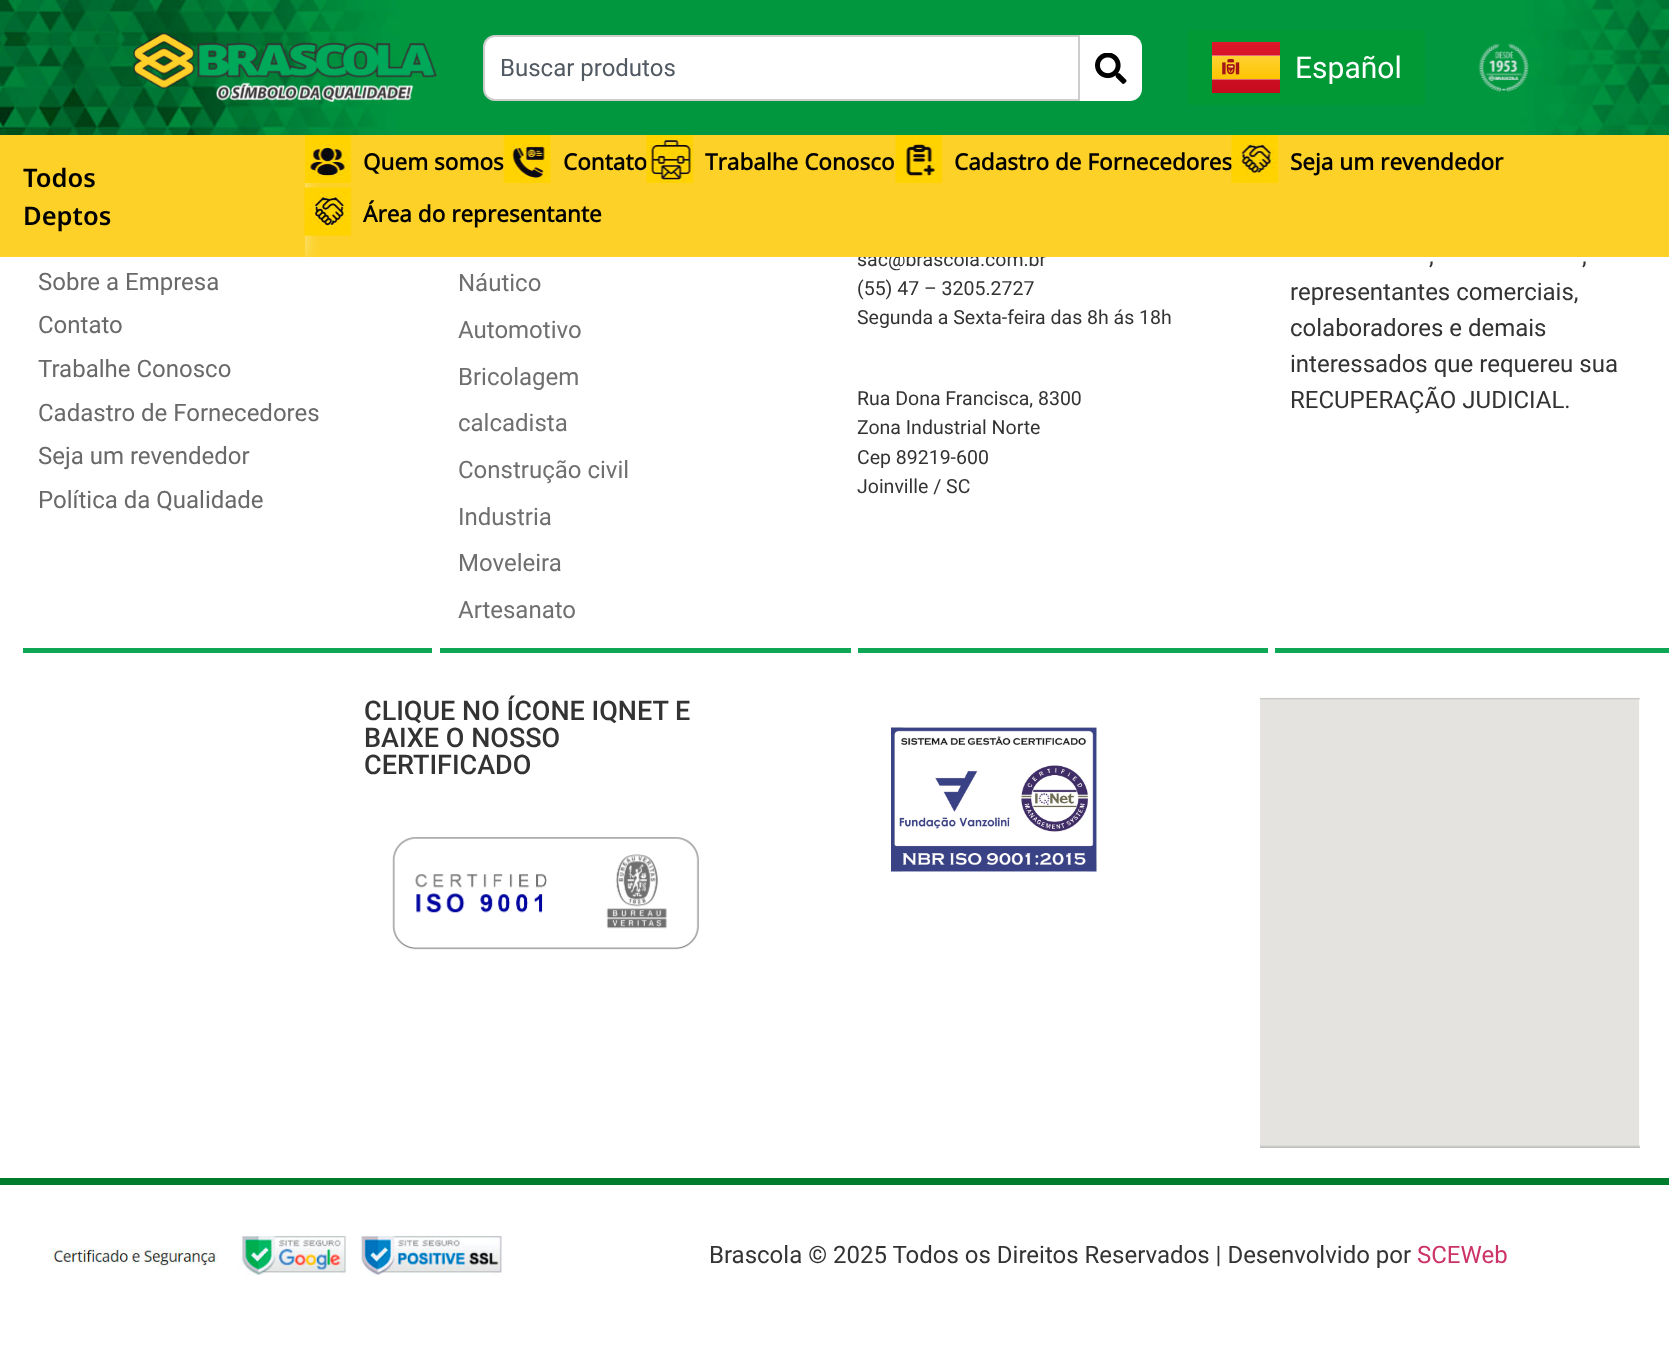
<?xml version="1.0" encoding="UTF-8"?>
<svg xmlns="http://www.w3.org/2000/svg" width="1669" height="1346">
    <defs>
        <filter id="blur1" x="-50%" y="-200%" width="200%" height="500%"><feGaussianBlur stdDeviation="22.5"/></filter>
        <clipPath id="clip1"><path d="M 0 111 H 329 V 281 H 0 Z M 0 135 H 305 V 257 H 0 Z" clip-rule="evenodd"/></clipPath>
        <filter id="blur2" x="-50%" y="-200%" width="200%" height="500%"><feGaussianBlur stdDeviation="7.5"/></filter>
    </defs>
    <rect width="100%" height="100%" fill="#FFFFFF"/>
    <rect x="0" y="135" width="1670" height="122" fill="#FFFFFF" fill-opacity="0.5" filter="url(#blur1)"/>
    <text x="857" y="266" font-family="Roboto" font-size="19.5" fill="#333333">sac@brascola.com.br</text>
    <rect x="0" y="135" width="1669" height="122" fill="#FDD128"/>
    <g clip-path="url(#clip1)">
        <rect x="0" y="135" width="305" height="122" fill="#FFFFFF" fill-opacity="0.5" filter="url(#blur2)"/>
    </g>
    <image x="0" y="0" width="1669" height="135" href="img_01.png"/>
    <image x="133" y="33" width="304" height="69" href="img_02.png"/>
    <path d="M 495 36 H 1079 V 100 H 495 C 489 100 484 95 484 89 V 47 C 484 41 489 36 495 36 Z" fill="#FFFFFF" stroke="#CDCDCD" stroke-width="2"/>
    <text x="500" y="76" font-family="Roboto" font-size="24" fill="#515962">Buscar produtos</text>
    <path d="M 1080 35 H 1130 C 1136.5 35 1142 40.5 1142 47 V 89 C 1142 95.5 1136.5 101 1130 101 H 1080 Z" fill="#FFFFFF"/>
    <image x="1095" y="53" width="32" height="31" href="img_03.png"/>
    <rect x="1188" y="30" width="237" height="75" fill="#019935"/>
    <image x="1212" y="42" width="68" height="51" href="img_04.png"/>
    <text x="1295" y="78" font-family="Roboto" font-size="30" fill="#FFFFFF">Español</text>
    <image x="1478" y="43" width="51" height="49" href="img_05.png"/>
    <text font-family="Noto Sans" font-size="25.5" font-weight="600" fill="#000000">
        <tspan x="23" y="187">Todos</tspan>
        <tspan x="23" y="225">Deptos</tspan>
    </text>
    <image x="305" y="135" width="47" height="48" href="img_06.png"/>
    <text x="363" y="170" font-family="Noto Sans Palmyrene" font-size="22.5" font-weight="700" fill="#000000">Quem somos</text>
    <image x="503" y="135" width="48" height="48" href="img_07.png"/>
    <text x="563" y="170" font-family="Noto Sans Palmyrene" font-size="22.5" font-weight="700" fill="#000000">Contato</text>
    <image x="646" y="135" width="48" height="48" href="img_08.png"/>
    <text x="705" y="170" font-family="Noto Sans Palmyrene" font-size="22.5" font-weight="700" fill="#000000">Trabalhe Conosco</text>
    <image x="895" y="135" width="48" height="48" href="img_09.png"/>
    <text x="954" y="170" font-family="Noto Sans Palmyrene" font-size="22.5" font-weight="700" fill="#000000">Cadastro de Fornecedores</text>
    <image x="1231" y="135" width="48" height="48" href="img_10.png"/>
    <text x="1290" y="170" font-family="Noto Sans Palmyrene" font-size="22.5" font-weight="700" fill="#000000">Seja um revendedor</text>
    <image x="304" y="187" width="48" height="49" href="img_11.png"/>
    <text x="363" y="222" font-family="Noto Sans Palmyrene" font-size="22.5" font-weight="700" fill="#000000">Área do representante</text>
    <rect x="23" y="648" width="409" height="5" fill="#0DA755"/>
    <text font-family="Roboto" font-size="24" fill="#696969">
        <tspan x="38" y="290">Sobre a Empresa</tspan>
        <tspan x="38" y="333">Contato</tspan>
        <tspan x="38" y="377">Trabalhe Conosco</tspan>
        <tspan x="38" y="421">Cadastro de Fornecedores</tspan>
        <tspan x="38" y="464">Seja um revendedor</tspan>
        <tspan x="38" y="508">Política da Qualidade</tspan>
    </text>
    <rect x="440" y="648" width="411" height="5" fill="#0DA755"/>
    <text font-family="Roboto" font-size="24" fill="#6F6F6F">
        <tspan x="458" y="291">Náutico</tspan>
        <tspan x="458" y="338">Automotivo</tspan>
        <tspan x="458" y="385">Bricolagem</tspan>
        <tspan x="458" y="431">calcadista</tspan>
        <tspan x="458" y="478">Construção civil</tspan>
        <tspan x="458" y="525">Industria</tspan>
        <tspan x="458" y="571">Moveleira</tspan>
        <tspan x="458" y="618">Artesanato</tspan>
    </text>
    <rect x="858" y="648" width="410" height="5" fill="#0DA755"/>
    <text font-family="Roboto" font-size="19.5" fill="#333333">
        <tspan x="857" y="295">(55) 47 – 3205.2727</tspan>
        <tspan x="857" y="324">Segunda a Sexta-feira das 8h ás 18h</tspan>
    </text>
    <text font-family="Roboto" font-size="19.5" fill="#333333">
        <tspan x="857" y="405">Rua Dona Francisca, 8300</tspan>
        <tspan x="857" y="434">Zona Industrial Norte</tspan>
        <tspan x="857" y="464">Cep 89219-600</tspan>
        <tspan x="857" y="493">Joinville / SC</tspan>
    </text>
    <rect x="1275" y="648" width="394" height="5" fill="#0DA755"/>
    <text x="1429" y="264" font-family="Roboto" font-size="24" fill="#333333">,</text>
    <text x="1582" y="264" font-family="Roboto" font-size="24" fill="#333333">,</text>
    <text font-family="Roboto" font-size="24" fill="#333333">
        <tspan x="1290" y="300">representantes comerciais,</tspan>
        <tspan x="1290" y="336">colaboradores e demais</tspan>
        <tspan x="1290" y="372">interessados que requereu sua</tspan>
        <tspan x="1290" y="408">RECUPERAÇÃO JUDICIAL.</tspan>
    </text>
    <text font-family="Roboto" font-size="27" font-weight="500" fill="#333333">
        <tspan x="364" y="720">CLIQUE NO ÍCONE IQNET E</tspan>
        <tspan x="364" y="747">BAIXE O NOSSO</tspan>
        <tspan x="364" y="774">CERTIFICADO</tspan>
    </text>
    <image x="392" y="837" width="307" height="113" href="img_12.png"/>
    <image x="891" y="727" width="206" height="145" href="img_13.png"/>
    <image x="1260" y="697" width="380" height="451" href="img_14.png"/>
    <rect x="0" y="1178" width="1669" height="7" fill="#007C2D"/>
    <image x="50" y="1235" width="452" height="41" href="img_15.png"/>
    <text x="709" y="1263" font-family="Roboto" font-size="24" fill="#333333">Brascola © 2025 Todos os Direitos Reservados | Desenvolvido por</text>
    <text x="1417" y="1263" font-family="Roboto" font-size="24" fill="#CC3366">SCEWeb</text>
</svg>
